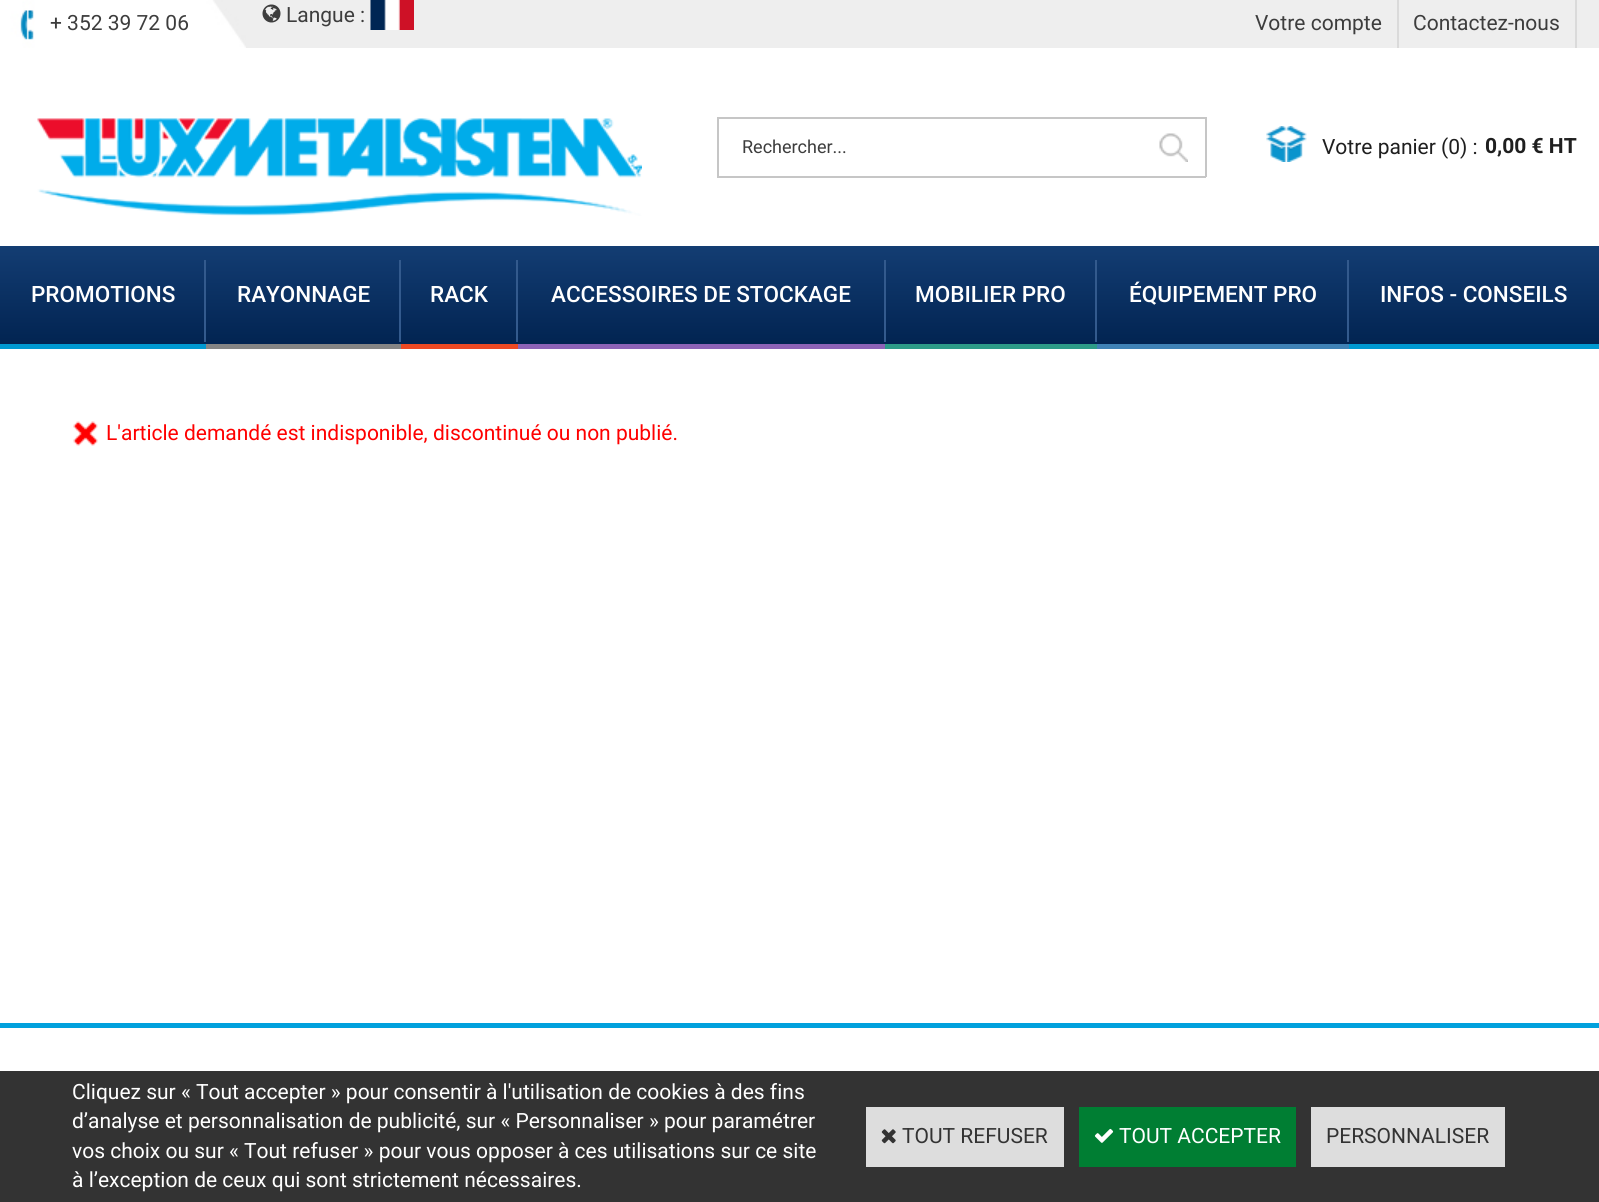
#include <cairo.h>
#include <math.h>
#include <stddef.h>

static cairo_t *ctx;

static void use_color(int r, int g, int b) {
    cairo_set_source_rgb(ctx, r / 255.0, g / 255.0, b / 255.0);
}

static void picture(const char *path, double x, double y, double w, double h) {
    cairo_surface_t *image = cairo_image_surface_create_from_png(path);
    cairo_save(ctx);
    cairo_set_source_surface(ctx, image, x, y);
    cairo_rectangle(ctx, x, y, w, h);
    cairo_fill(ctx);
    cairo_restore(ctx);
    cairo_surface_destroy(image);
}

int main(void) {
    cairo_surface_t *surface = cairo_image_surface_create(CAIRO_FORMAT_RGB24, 1599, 1202);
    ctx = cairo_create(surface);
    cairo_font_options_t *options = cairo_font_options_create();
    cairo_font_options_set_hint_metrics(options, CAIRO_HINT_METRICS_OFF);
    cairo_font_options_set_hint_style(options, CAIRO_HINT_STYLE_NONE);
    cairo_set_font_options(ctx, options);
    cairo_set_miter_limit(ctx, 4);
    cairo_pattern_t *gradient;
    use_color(255, 255, 255);
    cairo_paint(ctx);
    use_color(238, 238, 238);
    cairo_rectangle(ctx, 246, 0, 1353, 48);
    cairo_fill(ctx);
    picture("img1.png", 0, 0, 246, 48);
    cairo_select_font_face(ctx, "Roboto", CAIRO_FONT_SLANT_NORMAL, CAIRO_FONT_WEIGHT_NORMAL);
    cairo_set_font_size(ctx, 21);
    use_color(61, 61, 61);
    cairo_move_to(ctx, 50, 30);
    cairo_show_text(ctx, "+ 352 39 72 06");
    picture("img2.png", 262, 4, 19, 19);
    cairo_move_to(ctx, 286, 22);
    cairo_show_text(ctx, "Langue :");
    picture("img3.png", 370, 0, 44, 30);
    use_color(218, 218, 218);
    cairo_rectangle(ctx, 1397, 0, 2, 48);
    cairo_fill(ctx);
    use_color(61, 61, 61);
    cairo_move_to(ctx, 1255, 30);
    cairo_show_text(ctx, "Votre compte");
    use_color(218, 218, 218);
    cairo_rectangle(ctx, 1575, 0, 2, 48);
    cairo_fill(ctx);
    use_color(61, 61, 61);
    cairo_move_to(ctx, 1413, 30);
    cairo_show_text(ctx, "Contactez-nous");
    picture("img4.png", 37, 118, 605, 98);
    use_color(198, 198, 198);
    cairo_rectangle(ctx, 717, 117, 489, 2);
    cairo_fill(ctx);
    cairo_rectangle(ctx, 717, 176, 428, 2);
    cairo_fill(ctx);
    cairo_rectangle(ctx, 717, 117, 2, 60);
    cairo_fill(ctx);
    cairo_set_font_size(ctx, 18);
    use_color(61, 61, 61);
    cairo_move_to(ctx, 742, 153);
    cairo_show_text(ctx, "Rechercher...");
    picture("img5.png", 1159, 133, 29, 29);
    use_color(198, 198, 198);
    cairo_rectangle(ctx, 1205, 117, 2, 60);
    cairo_fill(ctx);
    cairo_rectangle(ctx, 1145, 176, 61, 2);
    cairo_fill(ctx);
    picture("img6.png", 1266, 126, 41, 36);
    cairo_set_font_size(ctx, 21);
    use_color(31, 31, 31);
    cairo_move_to(ctx, 1322, 154);
    cairo_show_text(ctx, "Votre panier (0) :");
    cairo_select_font_face(ctx, "Roboto", CAIRO_FONT_SLANT_NORMAL, CAIRO_FONT_WEIGHT_BOLD);
    cairo_move_to(ctx, 1485, 153);
    cairo_show_text(ctx, "0,00 € HT");
    gradient = cairo_pattern_create_linear(800, 246, 800, 348);
    cairo_pattern_add_color_stop_rgba(gradient, 0, 0.075, 0.239, 0.451, 1);
    cairo_pattern_add_color_stop_rgba(gradient, 1, 0.004, 0.137, 0.314, 1);
    cairo_set_source(ctx, gradient);
    cairo_pattern_destroy(gradient);
    cairo_rectangle(ctx, 0, 246, 1599, 98);
    cairo_fill(ctx);
    use_color(0, 153, 209);
    cairo_rectangle(ctx, 0, 344, 206, 5);
    cairo_fill(ctx);
    cairo_select_font_face(ctx, "Roboto Medium", CAIRO_FONT_SLANT_NORMAL, CAIRO_FONT_WEIGHT_NORMAL);
    cairo_set_font_size(ctx, 22.5);
    use_color(255, 255, 255);
    cairo_move_to(ctx, 31, 302);
    cairo_show_text(ctx, "PROMOTIONS");
    use_color(51, 90, 141);
    cairo_rectangle(ctx, 204, 260, 2, 82);
    cairo_fill(ctx);
    use_color(133, 133, 133);
    cairo_rectangle(ctx, 206, 344, 195, 5);
    cairo_fill(ctx);
    use_color(255, 255, 255);
    cairo_move_to(ctx, 237, 302);
    cairo_show_text(ctx, "RAYONNAGE");
    use_color(51, 90, 141);
    cairo_rectangle(ctx, 399, 260, 2, 82);
    cairo_fill(ctx);
    use_color(237, 73, 35);
    cairo_rectangle(ctx, 401, 344, 117, 5);
    cairo_fill(ctx);
    use_color(255, 255, 255);
    cairo_move_to(ctx, 430, 302);
    cairo_show_text(ctx, "RACK");
    use_color(51, 90, 141);
    cairo_rectangle(ctx, 516, 260, 2, 82);
    cairo_fill(ctx);
    use_color(141, 99, 183);
    cairo_rectangle(ctx, 518, 344, 367, 5);
    cairo_fill(ctx);
    use_color(255, 255, 255);
    cairo_move_to(ctx, 551, 302);
    cairo_show_text(ctx, "ACCESSOIRES DE STOCKAGE");
    use_color(51, 90, 141);
    cairo_rectangle(ctx, 884, 260, 2, 82);
    cairo_fill(ctx);
    use_color(45, 156, 136);
    cairo_rectangle(ctx, 885, 344, 212, 5);
    cairo_fill(ctx);
    use_color(255, 255, 255);
    cairo_move_to(ctx, 915, 302);
    cairo_show_text(ctx, "MOBILIER PRO");
    use_color(51, 90, 141);
    cairo_rectangle(ctx, 1095, 260, 2, 82);
    cairo_fill(ctx);
    use_color(63, 130, 182);
    cairo_rectangle(ctx, 1097, 344, 252, 5);
    cairo_fill(ctx);
    use_color(255, 255, 255);
    cairo_move_to(ctx, 1129, 302);
    cairo_show_text(ctx, "ÉQUIPEMENT PRO");
    use_color(51, 90, 141);
    cairo_rectangle(ctx, 1347, 260, 2, 82);
    cairo_fill(ctx);
    use_color(0, 153, 209);
    cairo_rectangle(ctx, 1349, 344, 250, 5);
    cairo_fill(ctx);
    use_color(255, 255, 255);
    cairo_move_to(ctx, 1380, 302);
    cairo_show_text(ctx, "INFOS - CONSEILS");
    picture("img7.png", 73, 421, 25, 25);
    cairo_select_font_face(ctx, "Roboto", CAIRO_FONT_SLANT_NORMAL, CAIRO_FONT_WEIGHT_NORMAL);
    cairo_set_font_size(ctx, 21);
    use_color(255, 0, 0);
    cairo_move_to(ctx, 106, 440);
    cairo_show_text(ctx, "L'article demandé est indisponible, discontinué ou non publié.");
    use_color(1, 161, 221);
    cairo_rectangle(ctx, 0, 1023, 1599, 5);
    cairo_fill(ctx);
    use_color(51, 51, 51);
    cairo_rectangle(ctx, 0, 1071, 1599, 131);
    cairo_fill(ctx);
    use_color(255, 255, 255);
    cairo_move_to(ctx, 72, 1099);
    cairo_show_text(ctx, "Cliquez sur « Tout accepter » pour consentir à l'utilisation de cookies à des fins");
    cairo_move_to(ctx, 72, 1128);
    cairo_show_text(ctx, "d’analyse et personnalisation de publicité, sur « Personnaliser » pour paramétrer");
    cairo_move_to(ctx, 72, 1158);
    cairo_show_text(ctx, "vos choix ou sur « Tout refuser » pour vous opposer à ces utilisations sur ce site");
    cairo_move_to(ctx, 72, 1187);
    cairo_show_text(ctx, "à l’exception de ceux qui sont strictement nécessaires.");
    use_color(221, 221, 221);
    cairo_rectangle(ctx, 866, 1107, 198, 60);
    cairo_fill(ctx);
    picture("img8.png", 881, 1129, 15, 15);
    use_color(51, 51, 51);
    cairo_move_to(ctx, 902, 1143);
    cairo_show_text(ctx, "TOUT REFUSER");
    use_color(0, 126, 51);
    cairo_rectangle(ctx, 1079, 1107, 217, 60);
    cairo_fill(ctx);
    picture("img9.png", 1094, 1128, 20, 15);
    use_color(255, 255, 255);
    cairo_move_to(ctx, 1119, 1143);
    cairo_show_text(ctx, "TOUT ACCEPTER");
    use_color(221, 221, 221);
    cairo_rectangle(ctx, 1311, 1107, 194, 60);
    cairo_fill(ctx);
    use_color(51, 51, 51);
    cairo_move_to(ctx, 1326, 1143);
    cairo_show_text(ctx, "PERSONNALISER");
    cairo_surface_write_to_png(surface, "result.png");
    cairo_font_options_destroy(options);
    cairo_destroy(ctx);
    cairo_surface_destroy(surface);
    return 0;
}
